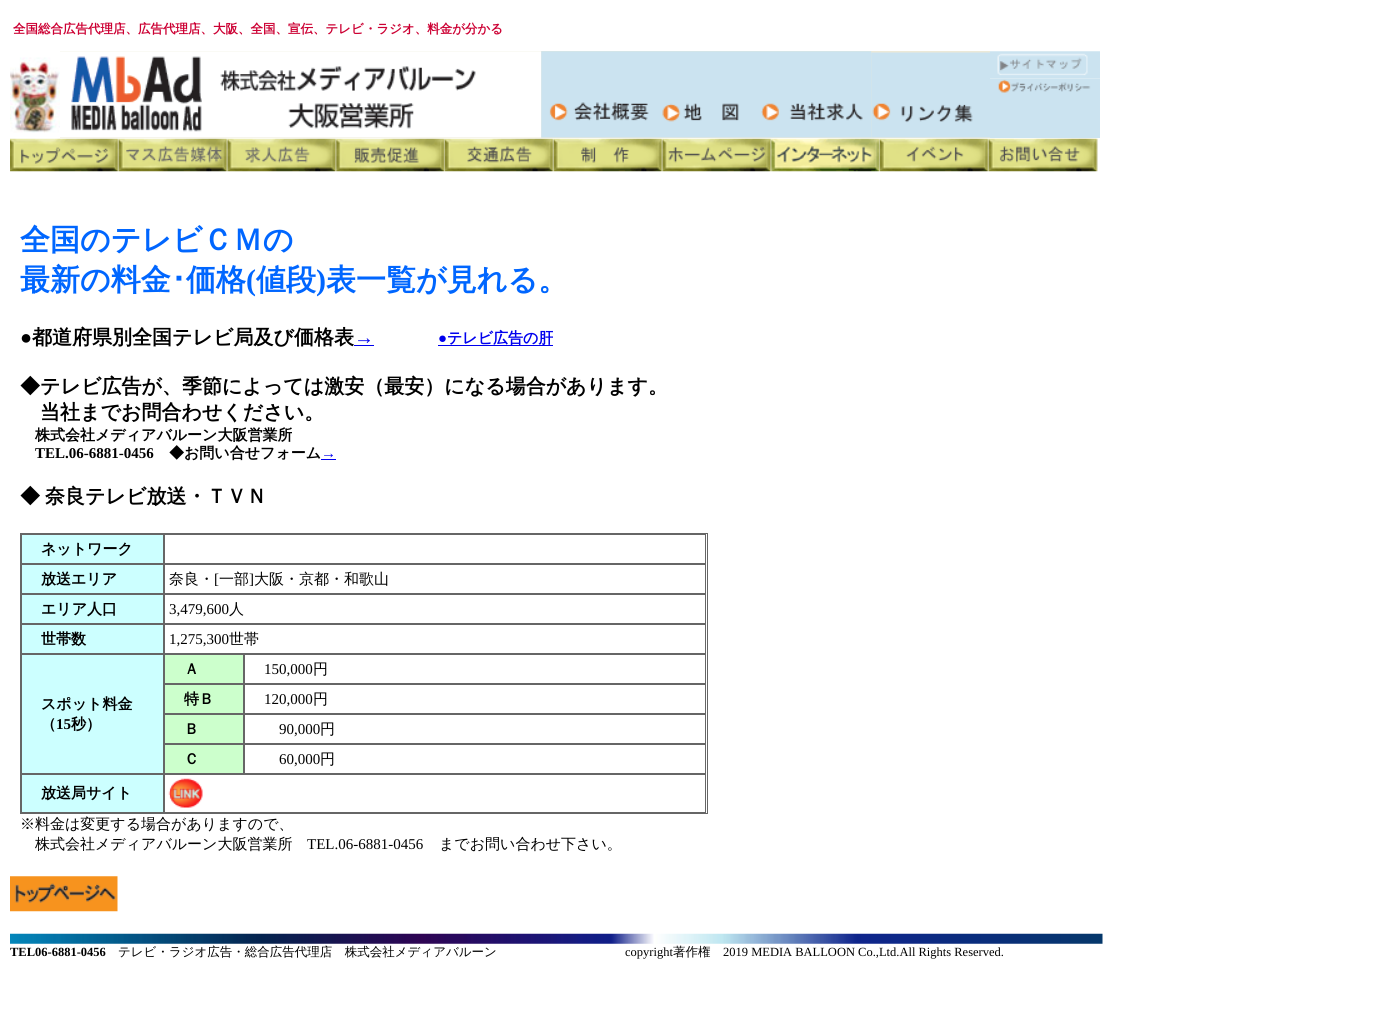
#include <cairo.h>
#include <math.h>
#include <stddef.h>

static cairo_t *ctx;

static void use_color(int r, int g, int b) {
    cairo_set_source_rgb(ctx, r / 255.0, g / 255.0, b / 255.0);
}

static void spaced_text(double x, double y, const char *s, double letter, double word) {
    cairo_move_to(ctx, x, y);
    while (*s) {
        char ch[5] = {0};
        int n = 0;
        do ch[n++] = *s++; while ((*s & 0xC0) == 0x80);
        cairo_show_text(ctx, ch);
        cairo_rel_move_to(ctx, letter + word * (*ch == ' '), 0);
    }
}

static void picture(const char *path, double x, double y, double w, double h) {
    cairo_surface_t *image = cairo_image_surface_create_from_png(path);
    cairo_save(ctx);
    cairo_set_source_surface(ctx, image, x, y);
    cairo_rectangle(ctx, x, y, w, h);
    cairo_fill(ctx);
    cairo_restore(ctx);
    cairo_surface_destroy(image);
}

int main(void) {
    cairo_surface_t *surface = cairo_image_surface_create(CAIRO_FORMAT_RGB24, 1394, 1030);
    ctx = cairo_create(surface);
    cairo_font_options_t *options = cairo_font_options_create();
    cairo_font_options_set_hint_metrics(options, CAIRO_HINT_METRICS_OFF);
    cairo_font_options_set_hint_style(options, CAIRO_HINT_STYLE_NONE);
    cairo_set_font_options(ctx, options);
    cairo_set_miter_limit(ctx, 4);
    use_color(255, 255, 255);
    cairo_paint(ctx);
    cairo_select_font_face(ctx, "WenQuanYi Zen Hei", CAIRO_FONT_SLANT_NORMAL, CAIRO_FONT_WEIGHT_BOLD);
    cairo_set_font_size(ctx, 12.5);
    use_color(204, 0, 51);
    cairo_move_to(ctx, 13, 33);
    cairo_show_text(ctx, "全国総合広告代理店、広告代理店、大阪、全国、宣伝、テレビ・ラジオ、料金が分かる");
    use_color(236, 233, 216);
    cairo_rectangle(ctx, 60, 51, 930, 87);
    cairo_fill(ctx);
    picture("img1.png", 60, 51, 482, 87);
    picture("img2.png", 10, 57, 50, 76);
    picture("img3.png", 541, 51, 119, 87);
    picture("img4.png", 660, 51, 100, 87);
    picture("img5.png", 760, 51, 112, 87);
    picture("img6.png", 871, 52, 119, 86);
    picture("img7.png", 990, 51, 110, 28);
    picture("img8.png", 990, 79, 110, 22);
    use_color(203, 227, 240);
    cairo_rectangle(ctx, 990, 101, 110, 37);
    cairo_fill(ctx);
    picture("img9.png", 10, 138, 109, 34);
    picture("img10.png", 118, 138, 110, 34);
    picture("img11.png", 227, 138, 110, 34);
    picture("img12.png", 336, 138, 109, 34);
    picture("img13.png", 445, 138, 109, 34);
    picture("img14.png", 553, 138, 110, 34);
    picture("img15.png", 662, 138, 110, 34);
    picture("img16.png", 771, 138, 109, 34);
    picture("img17.png", 880, 138, 109, 34);
    picture("img18.png", 988, 138, 110, 34);
    cairo_set_font_size(ctx, 30);
    use_color(0, 102, 255);
    cairo_move_to(ctx, 20, 250);
    cairo_show_text(ctx, "全国のテレビＣＭの");
    cairo_move_to(ctx, 20, 290);
    cairo_show_text(ctx, "最新の料金");
    cairo_select_font_face(ctx, "IPAGothic", CAIRO_FONT_SLANT_NORMAL, CAIRO_FONT_WEIGHT_BOLD);
    cairo_move_to(ctx, 171, 290);
    cairo_show_text(ctx, "･");
    cairo_select_font_face(ctx, "WenQuanYi Zen Hei", CAIRO_FONT_SLANT_NORMAL, CAIRO_FONT_WEIGHT_BOLD);
    cairo_move_to(ctx, 186, 290);
    cairo_show_text(ctx, "価格");
    cairo_select_font_face(ctx, "Liberation Serif", CAIRO_FONT_SLANT_NORMAL, CAIRO_FONT_WEIGHT_BOLD);
    cairo_move_to(ctx, 246, 290);
    cairo_show_text(ctx, "(");
    cairo_select_font_face(ctx, "WenQuanYi Zen Hei", CAIRO_FONT_SLANT_NORMAL, CAIRO_FONT_WEIGHT_BOLD);
    cairo_move_to(ctx, 256, 290);
    cairo_show_text(ctx, "値段");
    cairo_select_font_face(ctx, "Liberation Serif", CAIRO_FONT_SLANT_NORMAL, CAIRO_FONT_WEIGHT_BOLD);
    cairo_move_to(ctx, 316, 290);
    cairo_show_text(ctx, ")");
    cairo_select_font_face(ctx, "WenQuanYi Zen Hei", CAIRO_FONT_SLANT_NORMAL, CAIRO_FONT_WEIGHT_BOLD);
    cairo_move_to(ctx, 326, 290);
    cairo_show_text(ctx, "表一覧が見れる。");
    cairo_select_font_face(ctx, "Liberation Serif", CAIRO_FONT_SLANT_NORMAL, CAIRO_FONT_WEIGHT_BOLD);
    cairo_set_font_size(ctx, 20);
    use_color(0, 0, 0);
    cairo_move_to(ctx, 20, 344);
    cairo_show_text(ctx, "●");
    cairo_select_font_face(ctx, "WenQuanYi Zen Hei", CAIRO_FONT_SLANT_NORMAL, CAIRO_FONT_WEIGHT_BOLD);
    cairo_move_to(ctx, 32, 344);
    cairo_show_text(ctx, "都道府県別全国テレビ局及び価格表");
    cairo_select_font_face(ctx, "Liberation Serif", CAIRO_FONT_SLANT_NORMAL, CAIRO_FONT_WEIGHT_BOLD);
    use_color(0, 0, 238);
    cairo_move_to(ctx, 354, 344);
    cairo_show_text(ctx, "→");
    cairo_rectangle(ctx, 354, 345, 20, 1);
    cairo_fill(ctx);
    cairo_set_font_size(ctx, 15);
    cairo_move_to(ctx, 438, 343);
    cairo_show_text(ctx, "●");
    cairo_rectangle(ctx, 438, 345, 115, 1);
    cairo_fill(ctx);
    cairo_select_font_face(ctx, "WenQuanYi Zen Hei", CAIRO_FONT_SLANT_NORMAL, CAIRO_FONT_WEIGHT_BOLD);
    cairo_move_to(ctx, 447, 343);
    cairo_show_text(ctx, "テレビ広告の肝");
    cairo_set_font_size(ctx, 20);
    use_color(0, 0, 0);
    cairo_move_to(ctx, 20, 393);
    cairo_show_text(ctx, "◆テレビ広告が、季節によっては激安（最安）になる場合があります。");
    cairo_move_to(ctx, 40, 419);
    cairo_show_text(ctx, "当社までお問合わせください。");
    cairo_set_font_size(ctx, 15);
    cairo_move_to(ctx, 35, 440);
    cairo_show_text(ctx, "株式会社メディアバルーン大阪営業所");
    cairo_select_font_face(ctx, "Liberation Serif", CAIRO_FONT_SLANT_NORMAL, CAIRO_FONT_WEIGHT_BOLD);
    cairo_move_to(ctx, 35, 458);
    cairo_show_text(ctx, "TEL.06-6881-0456");
    cairo_select_font_face(ctx, "WenQuanYi Zen Hei", CAIRO_FONT_SLANT_NORMAL, CAIRO_FONT_WEIGHT_BOLD);
    cairo_move_to(ctx, 169, 458);
    cairo_show_text(ctx, "◆お問い合せフォーム");
    cairo_select_font_face(ctx, "Liberation Serif", CAIRO_FONT_SLANT_NORMAL, CAIRO_FONT_WEIGHT_BOLD);
    use_color(0, 0, 238);
    cairo_move_to(ctx, 321, 458);
    cairo_show_text(ctx, "→");
    cairo_rectangle(ctx, 321, 459, 15, 1);
    cairo_fill(ctx);
    cairo_select_font_face(ctx, "WenQuanYi Zen Hei", CAIRO_FONT_SLANT_NORMAL, CAIRO_FONT_WEIGHT_BOLD);
    cairo_set_font_size(ctx, 20);
    use_color(0, 0, 0);
    spaced_text(20, 503, "◆ 奈良テレビ放送・ＴＶＮ", 0, -1);
    cairo_rectangle(ctx, 20.5, 533.5, 687, 280);
    use_color(102, 102, 102);
    cairo_set_line_width(ctx, 1);
    cairo_stroke(ctx);
    use_color(204, 255, 255);
    cairo_rectangle(ctx, 21.5, 534.5, 142, 29);
    cairo_fill_preserve(ctx);
    use_color(102, 102, 102);
    cairo_stroke(ctx);
    cairo_set_font_size(ctx, 15);
    use_color(0, 0, 0);
    cairo_move_to(ctx, 41, 554);
    cairo_show_text(ctx, "ネットワーク");
    cairo_rectangle(ctx, 164.5, 534.5, 541, 29);
    use_color(102, 102, 102);
    cairo_stroke(ctx);
    use_color(204, 255, 255);
    cairo_rectangle(ctx, 21.5, 564.5, 142, 29);
    cairo_fill_preserve(ctx);
    use_color(102, 102, 102);
    cairo_stroke(ctx);
    use_color(0, 0, 0);
    cairo_move_to(ctx, 41, 584);
    cairo_show_text(ctx, "放送エリア");
    cairo_rectangle(ctx, 164.5, 564.5, 541, 29);
    use_color(102, 102, 102);
    cairo_stroke(ctx);
    cairo_select_font_face(ctx, "WenQuanYi Zen Hei Medium", CAIRO_FONT_SLANT_NORMAL, CAIRO_FONT_WEIGHT_NORMAL);
    use_color(0, 0, 0);
    cairo_move_to(ctx, 169, 584);
    cairo_show_text(ctx, "奈良・");
    cairo_select_font_face(ctx, "Liberation Serif", CAIRO_FONT_SLANT_NORMAL, CAIRO_FONT_WEIGHT_NORMAL);
    cairo_move_to(ctx, 214, 584);
    cairo_show_text(ctx, "[");
    cairo_select_font_face(ctx, "WenQuanYi Zen Hei Medium", CAIRO_FONT_SLANT_NORMAL, CAIRO_FONT_WEIGHT_NORMAL);
    cairo_move_to(ctx, 219, 584);
    cairo_show_text(ctx, "一部");
    cairo_select_font_face(ctx, "Liberation Serif", CAIRO_FONT_SLANT_NORMAL, CAIRO_FONT_WEIGHT_NORMAL);
    cairo_move_to(ctx, 249, 584);
    cairo_show_text(ctx, "]");
    cairo_select_font_face(ctx, "WenQuanYi Zen Hei Medium", CAIRO_FONT_SLANT_NORMAL, CAIRO_FONT_WEIGHT_NORMAL);
    cairo_move_to(ctx, 254, 584);
    cairo_show_text(ctx, "大阪・京都・和歌山");
    use_color(204, 255, 255);
    cairo_rectangle(ctx, 21.5, 594.5, 142, 29);
    cairo_fill_preserve(ctx);
    use_color(102, 102, 102);
    cairo_stroke(ctx);
    cairo_select_font_face(ctx, "WenQuanYi Zen Hei", CAIRO_FONT_SLANT_NORMAL, CAIRO_FONT_WEIGHT_BOLD);
    use_color(0, 0, 0);
    cairo_move_to(ctx, 41, 614);
    cairo_show_text(ctx, "エリア人口");
    cairo_rectangle(ctx, 164.5, 594.5, 541, 29);
    use_color(102, 102, 102);
    cairo_stroke(ctx);
    cairo_select_font_face(ctx, "Liberation Serif", CAIRO_FONT_SLANT_NORMAL, CAIRO_FONT_WEIGHT_NORMAL);
    use_color(0, 0, 0);
    cairo_move_to(ctx, 169, 614);
    cairo_show_text(ctx, "3,479,600");
    cairo_select_font_face(ctx, "WenQuanYi Zen Hei Medium", CAIRO_FONT_SLANT_NORMAL, CAIRO_FONT_WEIGHT_NORMAL);
    cairo_move_to(ctx, 229, 614);
    cairo_show_text(ctx, "人");
    use_color(204, 255, 255);
    cairo_rectangle(ctx, 21.5, 624.5, 142, 29);
    cairo_fill_preserve(ctx);
    use_color(102, 102, 102);
    cairo_stroke(ctx);
    cairo_select_font_face(ctx, "WenQuanYi Zen Hei", CAIRO_FONT_SLANT_NORMAL, CAIRO_FONT_WEIGHT_BOLD);
    use_color(0, 0, 0);
    cairo_move_to(ctx, 41, 644);
    cairo_show_text(ctx, "世帯数");
    cairo_rectangle(ctx, 164.5, 624.5, 541, 29);
    use_color(102, 102, 102);
    cairo_stroke(ctx);
    cairo_select_font_face(ctx, "Liberation Serif", CAIRO_FONT_SLANT_NORMAL, CAIRO_FONT_WEIGHT_NORMAL);
    use_color(0, 0, 0);
    cairo_move_to(ctx, 169, 644);
    cairo_show_text(ctx, "1,275,300");
    cairo_select_font_face(ctx, "WenQuanYi Zen Hei Medium", CAIRO_FONT_SLANT_NORMAL, CAIRO_FONT_WEIGHT_NORMAL);
    cairo_move_to(ctx, 229, 644);
    cairo_show_text(ctx, "世帯");
    use_color(204, 255, 204);
    cairo_rectangle(ctx, 164.5, 654.5, 79, 29);
    cairo_fill_preserve(ctx);
    use_color(102, 102, 102);
    cairo_stroke(ctx);
    cairo_select_font_face(ctx, "WenQuanYi Zen Hei", CAIRO_FONT_SLANT_NORMAL, CAIRO_FONT_WEIGHT_BOLD);
    use_color(0, 0, 0);
    cairo_move_to(ctx, 184, 674);
    cairo_show_text(ctx, "Ａ");
    cairo_rectangle(ctx, 244.5, 654.5, 461, 29);
    use_color(102, 102, 102);
    cairo_stroke(ctx);
    cairo_select_font_face(ctx, "Liberation Serif", CAIRO_FONT_SLANT_NORMAL, CAIRO_FONT_WEIGHT_NORMAL);
    use_color(0, 0, 0);
    cairo_move_to(ctx, 264, 674);
    cairo_show_text(ctx, "150,000");
    cairo_select_font_face(ctx, "WenQuanYi Zen Hei Medium", CAIRO_FONT_SLANT_NORMAL, CAIRO_FONT_WEIGHT_NORMAL);
    cairo_move_to(ctx, 313, 674);
    cairo_show_text(ctx, "円");
    use_color(204, 255, 255);
    cairo_rectangle(ctx, 21.5, 654.5, 142, 119);
    cairo_fill_preserve(ctx);
    use_color(102, 102, 102);
    cairo_stroke(ctx);
    cairo_select_font_face(ctx, "WenQuanYi Zen Hei", CAIRO_FONT_SLANT_NORMAL, CAIRO_FONT_WEIGHT_BOLD);
    use_color(0, 0, 0);
    cairo_move_to(ctx, 41, 709);
    cairo_show_text(ctx, "スポット料金");
    cairo_move_to(ctx, 41, 729);
    cairo_show_text(ctx, "（");
    cairo_select_font_face(ctx, "Liberation Serif", CAIRO_FONT_SLANT_NORMAL, CAIRO_FONT_WEIGHT_BOLD);
    cairo_move_to(ctx, 56, 729);
    cairo_show_text(ctx, "15");
    cairo_select_font_face(ctx, "WenQuanYi Zen Hei", CAIRO_FONT_SLANT_NORMAL, CAIRO_FONT_WEIGHT_BOLD);
    cairo_move_to(ctx, 71, 729);
    cairo_show_text(ctx, "秒）");
    use_color(204, 255, 204);
    cairo_rectangle(ctx, 164.5, 684.5, 79, 29);
    cairo_fill_preserve(ctx);
    use_color(102, 102, 102);
    cairo_stroke(ctx);
    use_color(0, 0, 0);
    cairo_move_to(ctx, 184, 704);
    cairo_show_text(ctx, "特Ｂ");
    cairo_rectangle(ctx, 244.5, 684.5, 461, 29);
    use_color(102, 102, 102);
    cairo_stroke(ctx);
    cairo_select_font_face(ctx, "Liberation Serif", CAIRO_FONT_SLANT_NORMAL, CAIRO_FONT_WEIGHT_NORMAL);
    use_color(0, 0, 0);
    cairo_move_to(ctx, 264, 704);
    cairo_show_text(ctx, "120,000");
    cairo_select_font_face(ctx, "WenQuanYi Zen Hei Medium", CAIRO_FONT_SLANT_NORMAL, CAIRO_FONT_WEIGHT_NORMAL);
    cairo_move_to(ctx, 313, 704);
    cairo_show_text(ctx, "円");
    use_color(204, 255, 204);
    cairo_rectangle(ctx, 164.5, 714.5, 79, 29);
    cairo_fill_preserve(ctx);
    use_color(102, 102, 102);
    cairo_stroke(ctx);
    cairo_select_font_face(ctx, "WenQuanYi Zen Hei", CAIRO_FONT_SLANT_NORMAL, CAIRO_FONT_WEIGHT_BOLD);
    use_color(0, 0, 0);
    cairo_move_to(ctx, 184, 734);
    cairo_show_text(ctx, "Ｂ");
    cairo_rectangle(ctx, 244.5, 714.5, 461, 29);
    use_color(102, 102, 102);
    cairo_stroke(ctx);
    cairo_select_font_face(ctx, "Liberation Serif", CAIRO_FONT_SLANT_NORMAL, CAIRO_FONT_WEIGHT_NORMAL);
    use_color(0, 0, 0);
    cairo_move_to(ctx, 279, 734);
    cairo_show_text(ctx, "90,000");
    cairo_select_font_face(ctx, "WenQuanYi Zen Hei Medium", CAIRO_FONT_SLANT_NORMAL, CAIRO_FONT_WEIGHT_NORMAL);
    cairo_move_to(ctx, 320, 734);
    cairo_show_text(ctx, "円");
    use_color(204, 255, 204);
    cairo_rectangle(ctx, 164.5, 744.5, 79, 29);
    cairo_fill_preserve(ctx);
    use_color(102, 102, 102);
    cairo_stroke(ctx);
    cairo_select_font_face(ctx, "WenQuanYi Zen Hei", CAIRO_FONT_SLANT_NORMAL, CAIRO_FONT_WEIGHT_BOLD);
    use_color(0, 0, 0);
    cairo_move_to(ctx, 184, 764);
    cairo_show_text(ctx, "Ｃ");
    cairo_rectangle(ctx, 244.5, 744.5, 461, 29);
    use_color(102, 102, 102);
    cairo_stroke(ctx);
    cairo_select_font_face(ctx, "Liberation Serif", CAIRO_FONT_SLANT_NORMAL, CAIRO_FONT_WEIGHT_NORMAL);
    use_color(0, 0, 0);
    cairo_move_to(ctx, 279, 764);
    cairo_show_text(ctx, "60,000");
    cairo_select_font_face(ctx, "WenQuanYi Zen Hei Medium", CAIRO_FONT_SLANT_NORMAL, CAIRO_FONT_WEIGHT_NORMAL);
    cairo_move_to(ctx, 320, 764);
    cairo_show_text(ctx, "円");
    use_color(204, 255, 255);
    cairo_rectangle(ctx, 21.5, 774.5, 142, 38);
    cairo_fill_preserve(ctx);
    use_color(102, 102, 102);
    cairo_stroke(ctx);
    cairo_select_font_face(ctx, "WenQuanYi Zen Hei", CAIRO_FONT_SLANT_NORMAL, CAIRO_FONT_WEIGHT_BOLD);
    use_color(0, 0, 0);
    cairo_move_to(ctx, 41, 798);
    cairo_show_text(ctx, "放送局サイト");
    cairo_rectangle(ctx, 164.5, 774.5, 541, 38);
    use_color(102, 102, 102);
    cairo_stroke(ctx);
    picture("img19.png", 168, 778, 35, 30);
    cairo_select_font_face(ctx, "WenQuanYi Zen Hei Medium", CAIRO_FONT_SLANT_NORMAL, CAIRO_FONT_WEIGHT_NORMAL);
    use_color(0, 0, 0);
    cairo_move_to(ctx, 20, 829);
    cairo_show_text(ctx, "※料金は変更する場合がありますので、");
    cairo_move_to(ctx, 35, 849);
    cairo_show_text(ctx, "株式会社メディアバルーン大阪営業所");
    cairo_select_font_face(ctx, "Liberation Serif", CAIRO_FONT_SLANT_NORMAL, CAIRO_FONT_WEIGHT_NORMAL);
    cairo_move_to(ctx, 307, 849);
    cairo_show_text(ctx, "TEL.06-6881-0456");
    cairo_select_font_face(ctx, "WenQuanYi Zen Hei Medium", CAIRO_FONT_SLANT_NORMAL, CAIRO_FONT_WEIGHT_NORMAL);
    cairo_move_to(ctx, 439, 849);
    cairo_show_text(ctx, "までお問い合わせ下さい。");
    picture("img20.png", 10, 876, 108, 36);
    picture("img21.png", 10, 933, 1093, 11);
    cairo_select_font_face(ctx, "Liberation Serif", CAIRO_FONT_SLANT_NORMAL, CAIRO_FONT_WEIGHT_BOLD);
    cairo_set_font_size(ctx, 12.5);
    cairo_move_to(ctx, 10, 956);
    cairo_show_text(ctx, "TEL06-6881-0456");
    cairo_select_font_face(ctx, "WenQuanYi Zen Hei Medium", CAIRO_FONT_SLANT_NORMAL, CAIRO_FONT_WEIGHT_NORMAL);
    cairo_move_to(ctx, 118, 956);
    cairo_show_text(ctx, "テレビ・ラジオ広告・総合広告代理店　株式会社メディアバルーン");
    cairo_select_font_face(ctx, "Liberation Serif", CAIRO_FONT_SLANT_NORMAL, CAIRO_FONT_WEIGHT_NORMAL);
    cairo_move_to(ctx, 625, 956);
    cairo_show_text(ctx, "copyright");
    cairo_select_font_face(ctx, "WenQuanYi Zen Hei Medium", CAIRO_FONT_SLANT_NORMAL, CAIRO_FONT_WEIGHT_NORMAL);
    cairo_move_to(ctx, 673, 956);
    cairo_show_text(ctx, "著作権");
    cairo_select_font_face(ctx, "Liberation Serif", CAIRO_FONT_SLANT_NORMAL, CAIRO_FONT_WEIGHT_NORMAL);
    cairo_move_to(ctx, 723, 956);
    cairo_show_text(ctx, "2019 MEDIA BALLOON Co.,Ltd.All Rights Reserved.");
    cairo_surface_write_to_png(surface, "result.png");
    cairo_font_options_destroy(options);
    cairo_destroy(ctx);
    cairo_surface_destroy(surface);
    return 0;
}
